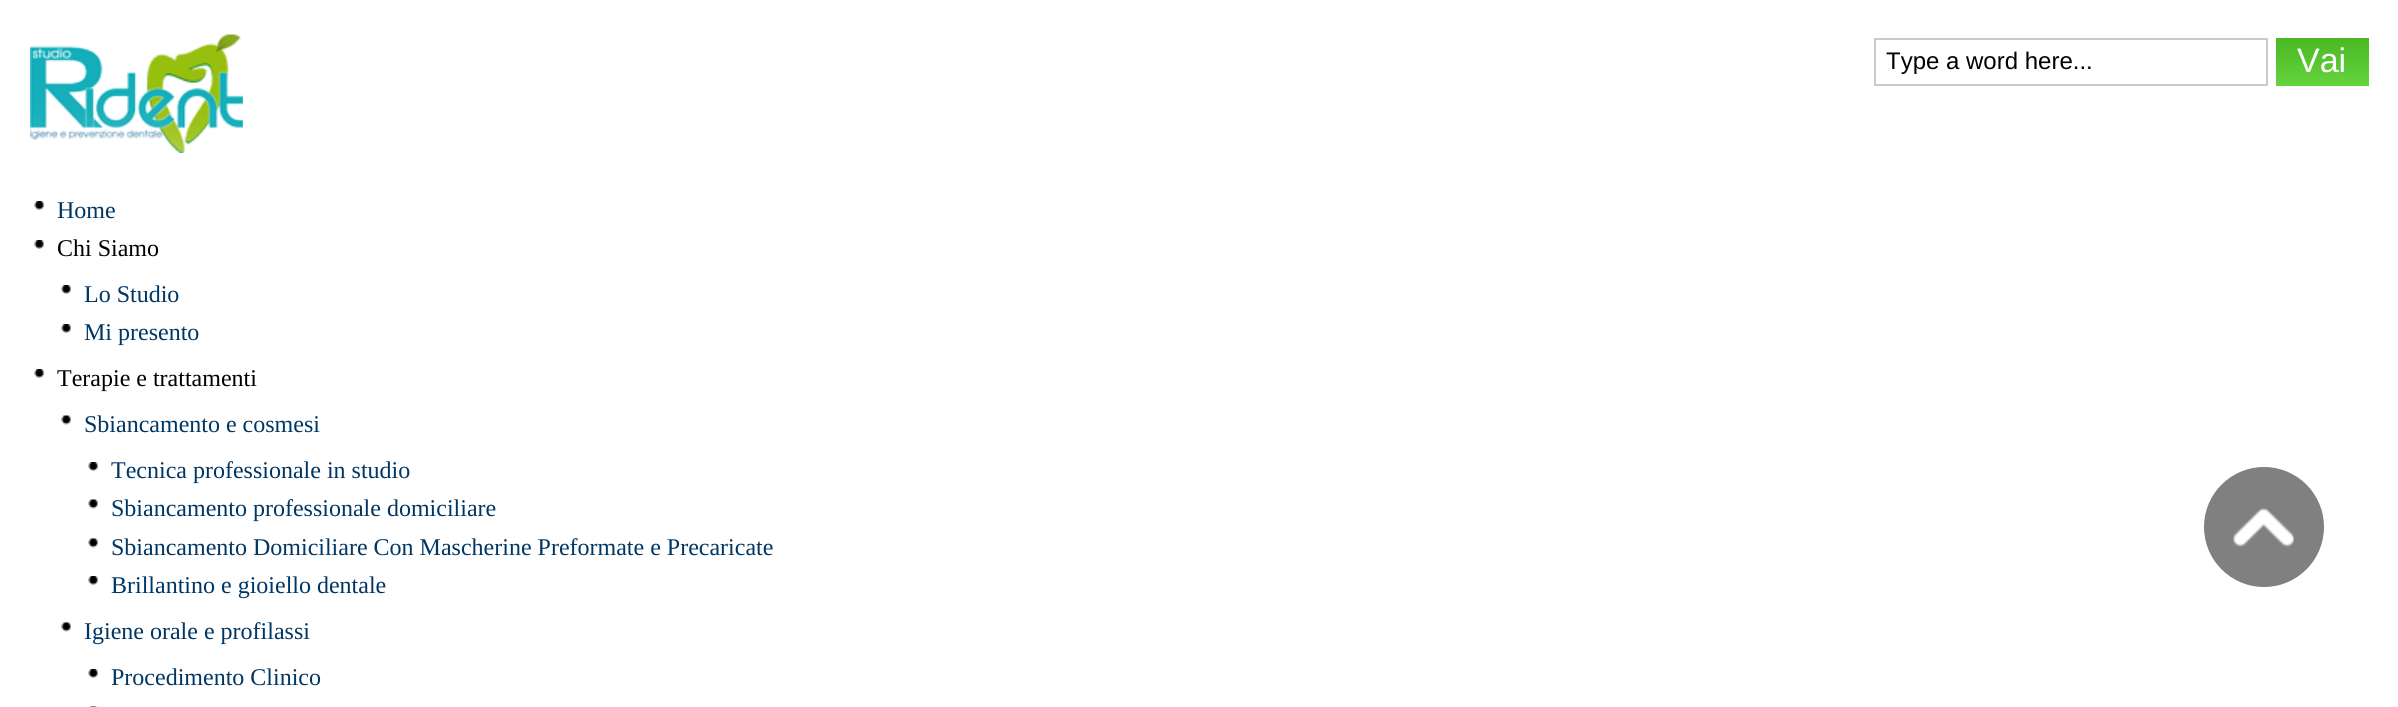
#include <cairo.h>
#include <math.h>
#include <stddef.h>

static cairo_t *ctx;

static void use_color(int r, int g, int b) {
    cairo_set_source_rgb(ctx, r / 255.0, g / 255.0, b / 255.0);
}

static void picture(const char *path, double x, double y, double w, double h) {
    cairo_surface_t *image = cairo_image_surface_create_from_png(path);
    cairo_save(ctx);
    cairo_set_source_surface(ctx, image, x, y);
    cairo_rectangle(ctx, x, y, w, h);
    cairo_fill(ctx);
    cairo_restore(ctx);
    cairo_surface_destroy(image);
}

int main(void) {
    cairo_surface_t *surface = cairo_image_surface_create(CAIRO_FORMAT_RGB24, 2398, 707);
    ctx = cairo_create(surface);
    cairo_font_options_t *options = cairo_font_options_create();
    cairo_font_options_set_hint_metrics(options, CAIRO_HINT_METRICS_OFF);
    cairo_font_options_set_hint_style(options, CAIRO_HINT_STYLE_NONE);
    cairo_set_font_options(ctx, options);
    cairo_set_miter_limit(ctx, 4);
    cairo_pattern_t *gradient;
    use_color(255, 255, 255);
    cairo_paint(ctx);
    picture("img1.png", 30, 34, 213, 119);
    cairo_rectangle(ctx, 1875, 39, 392, 46);
    use_color(202, 202, 202);
    cairo_stroke(ctx);
    cairo_select_font_face(ctx, "Liberation Sans", CAIRO_FONT_SLANT_NORMAL, CAIRO_FONT_WEIGHT_NORMAL);
    cairo_set_font_size(ctx, 24);
    use_color(0, 0, 0);
    cairo_move_to(ctx, 1886, 69);
    cairo_show_text(ctx, "Type a word here...");
    gradient = cairo_pattern_create_linear(2322, 37, 2322, 86);
    cairo_pattern_add_color_stop_rgba(gradient, 0, 0.286, 0.718, 0.133, 1);
    cairo_pattern_add_color_stop_rgba(gradient, 1, 0.4, 0.831, 0.247, 1);
    cairo_set_source(ctx, gradient);
    cairo_pattern_destroy(gradient);
    cairo_rectangle(ctx, 2276, 38, 93, 48);
    cairo_fill(ctx);
    cairo_set_font_size(ctx, 34);
    use_color(255, 255, 255);
    cairo_move_to(ctx, 2297, 72);
    cairo_show_text(ctx, "Vai");
    picture("img2.png", 34, 201, 10, 9);
    cairo_select_font_face(ctx, "Liberation Serif", CAIRO_FONT_SLANT_NORMAL, CAIRO_FONT_WEIGHT_NORMAL);
    cairo_set_font_size(ctx, 24);
    use_color(0, 54, 99);
    cairo_move_to(ctx, 57, 218);
    cairo_show_text(ctx, "Home");
    picture("img2.png", 34, 240, 10, 9);
    use_color(0, 0, 0);
    cairo_move_to(ctx, 57, 256);
    cairo_show_text(ctx, "Chi Siamo");
    picture("img2.png", 61, 285, 10, 9);
    use_color(0, 54, 99);
    cairo_move_to(ctx, 84, 302);
    cairo_show_text(ctx, "Lo Studio");
    picture("img2.png", 61, 324, 10, 9);
    cairo_move_to(ctx, 84, 340);
    cairo_show_text(ctx, "Mi presento");
    picture("img2.png", 34, 369, 10, 9);
    use_color(0, 0, 0);
    cairo_move_to(ctx, 57, 386);
    cairo_show_text(ctx, "Terapie e trattamenti");
    picture("img3.png", 61, 415, 10, 10);
    use_color(0, 54, 99);
    cairo_move_to(ctx, 84, 432);
    cairo_show_text(ctx, "Sbiancamento e cosmesi");
    picture("img2.png", 88, 462, 10, 9);
    cairo_move_to(ctx, 111, 478);
    cairo_show_text(ctx, "Tecnica professionale in studio");
    picture("img3.png", 88, 499, 10, 10);
    cairo_move_to(ctx, 111, 516);
    cairo_show_text(ctx, "Sbiancamento professionale domiciliare");
    picture("img3.png", 88, 538, 10, 10);
    cairo_move_to(ctx, 111, 555);
    cairo_show_text(ctx, "Sbiancamento Domiciliare Con Mascherine Preformate e Precaricate");
    picture("img2.png", 88, 576, 10, 9);
    cairo_move_to(ctx, 111, 593);
    cairo_show_text(ctx, "Brillantino e gioiello dentale");
    picture("img3.png", 61, 622, 10, 10);
    cairo_move_to(ctx, 84, 639);
    cairo_show_text(ctx, "Igiene orale e profilassi");
    picture("img2.png", 88, 669, 10, 9);
    cairo_move_to(ctx, 111, 685);
    cairo_show_text(ctx, "Procedimento Clinico");
    picture("img4.png", 89, 706, 9, 1);
    use_color(128, 128, 128);
    cairo_arc(ctx, 2264, 527, 60, 0, 2 * M_PI);
    cairo_fill(ctx);
    picture("img5.png", 2233, 508, 61, 39);
    cairo_surface_write_to_png(surface, "result.png");
    cairo_font_options_destroy(options);
    cairo_destroy(ctx);
    cairo_surface_destroy(surface);
    return 0;
}
